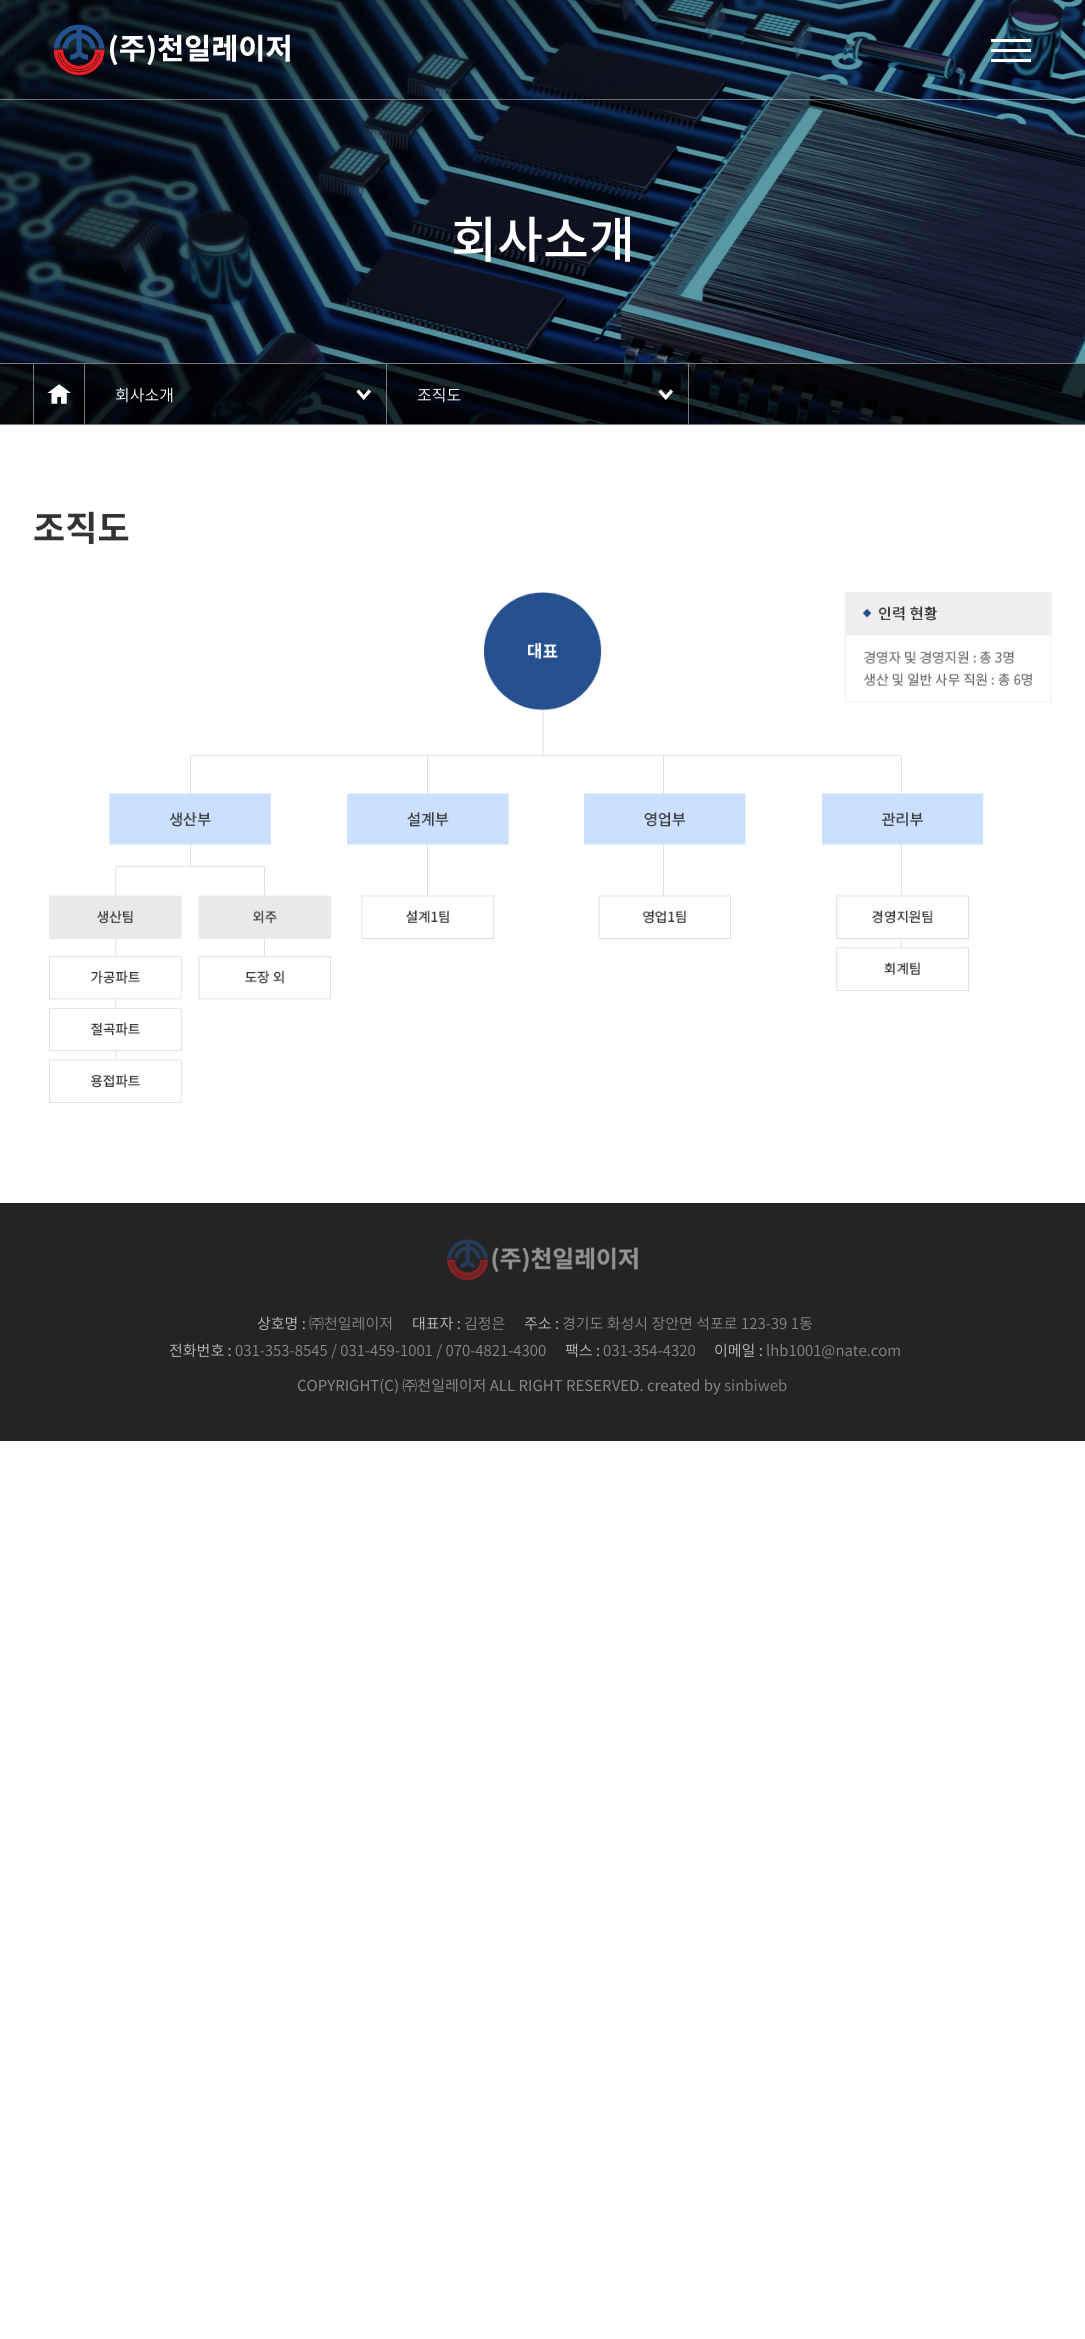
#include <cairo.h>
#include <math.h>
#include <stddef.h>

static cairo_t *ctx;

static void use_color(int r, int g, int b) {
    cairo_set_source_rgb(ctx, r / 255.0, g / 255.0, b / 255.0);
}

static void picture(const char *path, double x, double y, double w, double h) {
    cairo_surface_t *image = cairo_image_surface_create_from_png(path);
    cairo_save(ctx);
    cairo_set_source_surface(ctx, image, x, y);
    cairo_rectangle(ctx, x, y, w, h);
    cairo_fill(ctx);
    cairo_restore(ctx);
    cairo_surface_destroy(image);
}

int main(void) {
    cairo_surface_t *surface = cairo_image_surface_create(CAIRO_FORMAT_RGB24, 1085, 2339);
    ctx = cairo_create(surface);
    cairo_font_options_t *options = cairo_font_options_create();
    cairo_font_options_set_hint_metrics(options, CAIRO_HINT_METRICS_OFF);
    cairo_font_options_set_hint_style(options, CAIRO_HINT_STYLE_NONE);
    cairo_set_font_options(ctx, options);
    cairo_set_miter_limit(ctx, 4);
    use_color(255, 255, 255);
    cairo_paint(ctx);
    picture("img2.png", 0, 0, 1085, 424);
    cairo_set_source_rgba(ctx, 1, 1, 1, 0.4);
    cairo_rectangle(ctx, 0, 99, 1085, 1);
    cairo_fill(ctx);
    picture("img1.png", 54, 24, 236, 51);
    use_color(255, 255, 255);
    cairo_rectangle(ctx, 991, 49, 40, 3);
    cairo_fill(ctx);
    cairo_rectangle(ctx, 991, 39, 40, 3);
    cairo_fill(ctx);
    cairo_rectangle(ctx, 991, 59, 40, 3);
    cairo_fill(ctx);
    cairo_select_font_face(ctx, "Noto Sans KR Medium", CAIRO_FONT_SLANT_NORMAL, CAIRO_FONT_WEIGHT_NORMAL);
    cairo_set_font_size(ctx, 50);
    cairo_move_to(ctx, 451, 258);
    cairo_show_text(ctx, "회사소개");
    cairo_set_source_rgba(ctx, 0, 0, 0, 0.7);
    cairo_rectangle(ctx, 0, 364, 1085, 60);
    cairo_fill(ctx);
    use_color(122, 122, 122);
    cairo_rectangle(ctx, 0, 363, 1085, 1);
    cairo_fill(ctx);
    cairo_rectangle(ctx, 0, 424, 1085, 1);
    cairo_fill(ctx);
    cairo_rectangle(ctx, 84, 364, 1, 60);
    cairo_fill(ctx);
    cairo_rectangle(ctx, 33, 364, 1, 60);
    cairo_fill(ctx);
    picture("img3.png", 47, 384, 24, 20);
    cairo_rectangle(ctx, 386, 364, 1, 60);
    cairo_fill(ctx);
    picture("img4.png", 356, 389, 15, 11);
    cairo_select_font_face(ctx, "Noto Sans KR Light", CAIRO_FONT_SLANT_NORMAL, CAIRO_FONT_WEIGHT_NORMAL);
    cairo_set_font_size(ctx, 16);
    use_color(255, 255, 255);
    cairo_move_to(ctx, 115, 401);
    cairo_show_text(ctx, "회사소개");
    use_color(122, 122, 122);
    cairo_rectangle(ctx, 688, 364, 1, 60);
    cairo_fill(ctx);
    picture("img5.png", 658, 389, 15, 11);
    use_color(255, 255, 255);
    cairo_move_to(ctx, 417, 401);
    cairo_show_text(ctx, "조직도");
    cairo_select_font_face(ctx, "Noto Sans KR", CAIRO_FONT_SLANT_NORMAL, CAIRO_FONT_WEIGHT_BOLD);
    cairo_set_font_size(ctx, 35);
    use_color(51, 51, 51);
    cairo_move_to(ctx, 33, 541);
    cairo_show_text(ctx, "조직도");
    picture("img6.png", 49, 592, 1003, 511);
    use_color(36, 36, 36);
    cairo_rectangle(ctx, 0, 1203, 1085, 238);
    cairo_fill(ctx);
    picture("img7.png", 447, 1239, 191, 41);
    cairo_select_font_face(ctx, "Noto Sans KR Light", CAIRO_FONT_SLANT_NORMAL, CAIRO_FONT_WEIGHT_NORMAL);
    cairo_set_font_size(ctx, 15);
    use_color(190, 190, 190);
    cairo_move_to(ctx, 257, 1329);
    cairo_show_text(ctx, "상호명 :");
    use_color(136, 136, 136);
    cairo_move_to(ctx, 309, 1329);
    cairo_show_text(ctx, "㈜천일레이저");
    use_color(190, 190, 190);
    cairo_move_to(ctx, 412, 1329);
    cairo_show_text(ctx, "대표자 :");
    use_color(136, 136, 136);
    cairo_move_to(ctx, 464, 1329);
    cairo_show_text(ctx, "김정은");
    use_color(190, 190, 190);
    cairo_move_to(ctx, 524, 1329);
    cairo_show_text(ctx, "주소 :");
    use_color(136, 136, 136);
    cairo_move_to(ctx, 562, 1329);
    cairo_show_text(ctx, "경기도 화성시 장안면 석포로 123-39 1동");
    use_color(190, 190, 190);
    cairo_move_to(ctx, 169, 1356);
    cairo_show_text(ctx, "전화번호 :");
    use_color(136, 136, 136);
    cairo_move_to(ctx, 235, 1356);
    cairo_show_text(ctx, "031-353-8545 / 031-459-1001 / 070-4821-4300");
    use_color(190, 190, 190);
    cairo_move_to(ctx, 565, 1356);
    cairo_show_text(ctx, "팩스 :");
    use_color(136, 136, 136);
    cairo_move_to(ctx, 603, 1356);
    cairo_show_text(ctx, "031-354-4320");
    use_color(190, 190, 190);
    cairo_move_to(ctx, 714, 1356);
    cairo_show_text(ctx, "이메일 :");
    use_color(136, 136, 136);
    cairo_move_to(ctx, 766, 1356);
    cairo_show_text(ctx, "lhb1001@nate.com");
    cairo_select_font_face(ctx, "Noto Sans KR", CAIRO_FONT_SLANT_NORMAL, CAIRO_FONT_WEIGHT_NORMAL);
    cairo_move_to(ctx, 297, 1391);
    cairo_show_text(ctx, "COPYRIGHT(C) ㈜천일레이저 ALL RIGHT RESERVED. created by");
    use_color(121, 121, 121);
    cairo_move_to(ctx, 724, 1391);
    cairo_show_text(ctx, "sinbiweb");
    cairo_surface_write_to_png(surface, "result.png");
    cairo_font_options_destroy(options);
    cairo_destroy(ctx);
    cairo_surface_destroy(surface);
    return 0;
}
